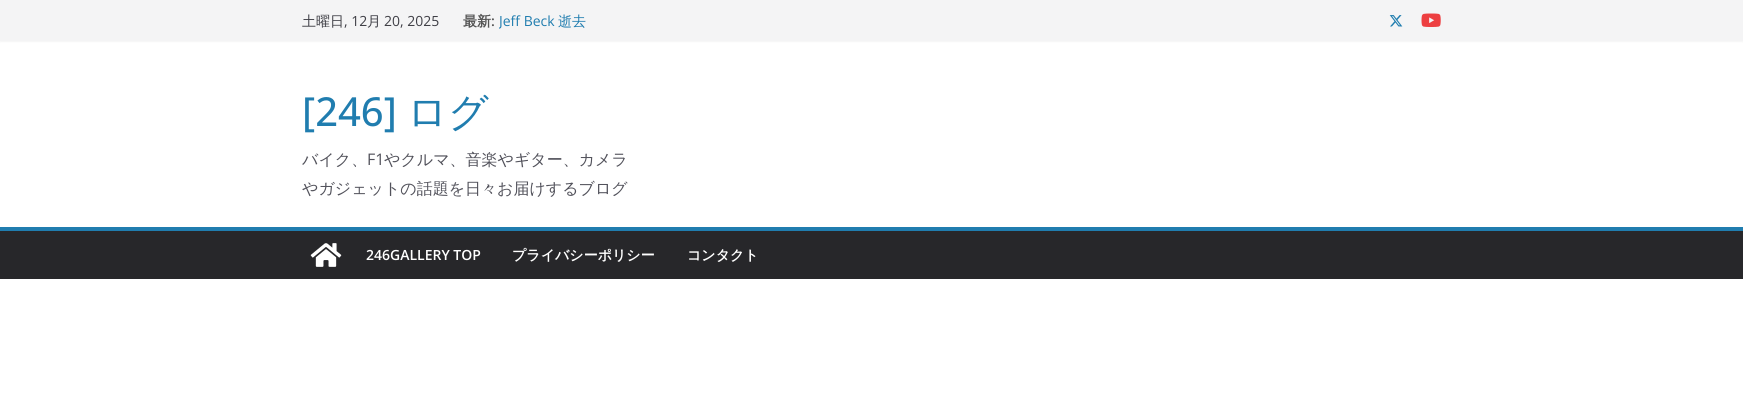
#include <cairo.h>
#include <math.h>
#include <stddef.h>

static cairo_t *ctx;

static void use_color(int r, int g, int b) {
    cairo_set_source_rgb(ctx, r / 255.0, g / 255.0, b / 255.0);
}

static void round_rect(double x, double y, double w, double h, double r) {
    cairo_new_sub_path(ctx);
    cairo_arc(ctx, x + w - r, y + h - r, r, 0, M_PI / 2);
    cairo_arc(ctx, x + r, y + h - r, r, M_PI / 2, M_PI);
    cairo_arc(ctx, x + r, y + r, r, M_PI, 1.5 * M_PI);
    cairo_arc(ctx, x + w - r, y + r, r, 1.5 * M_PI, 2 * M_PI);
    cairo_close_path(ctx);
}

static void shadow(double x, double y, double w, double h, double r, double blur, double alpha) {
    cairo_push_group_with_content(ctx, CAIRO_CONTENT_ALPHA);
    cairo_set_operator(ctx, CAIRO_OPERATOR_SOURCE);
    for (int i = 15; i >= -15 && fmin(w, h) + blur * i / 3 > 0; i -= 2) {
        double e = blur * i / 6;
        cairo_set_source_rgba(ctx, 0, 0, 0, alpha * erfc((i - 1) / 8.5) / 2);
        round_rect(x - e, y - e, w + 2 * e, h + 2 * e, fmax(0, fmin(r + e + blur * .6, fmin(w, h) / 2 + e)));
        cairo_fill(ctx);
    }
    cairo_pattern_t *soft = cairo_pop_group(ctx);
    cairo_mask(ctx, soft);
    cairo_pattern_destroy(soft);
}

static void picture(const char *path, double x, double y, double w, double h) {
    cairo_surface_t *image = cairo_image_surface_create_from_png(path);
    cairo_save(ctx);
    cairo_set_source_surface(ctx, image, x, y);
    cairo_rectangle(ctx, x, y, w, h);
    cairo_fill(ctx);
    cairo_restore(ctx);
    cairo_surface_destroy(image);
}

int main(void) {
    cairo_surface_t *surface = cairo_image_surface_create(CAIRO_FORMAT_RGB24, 1743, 411);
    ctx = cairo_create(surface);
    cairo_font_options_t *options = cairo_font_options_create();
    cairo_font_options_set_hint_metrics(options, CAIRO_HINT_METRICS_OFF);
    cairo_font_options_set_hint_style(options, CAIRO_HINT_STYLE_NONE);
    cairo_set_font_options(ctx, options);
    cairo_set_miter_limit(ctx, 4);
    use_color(255, 255, 255);
    cairo_paint(ctx);
    use_color(0, 0, 0);
    shadow(0, 0, 1743, 41, 0, 1, 0.1);
    use_color(244, 244, 245);
    cairo_rectangle(ctx, 0, 0, 1743, 41);
    cairo_fill(ctx);
    cairo_select_font_face(ctx, "WenQuanYi Zen Hei Medium", CAIRO_FONT_SLANT_NORMAL, CAIRO_FONT_WEIGHT_NORMAL);
    cairo_set_font_size(ctx, 14);
    use_color(63, 63, 70);
    cairo_move_to(ctx, 302, 26);
    cairo_show_text(ctx, "土曜日");
    cairo_select_font_face(ctx, "Open Sans", CAIRO_FONT_SLANT_NORMAL, CAIRO_FONT_WEIGHT_NORMAL);
    cairo_move_to(ctx, 344, 26);
    cairo_show_text(ctx, ", 12");
    cairo_select_font_face(ctx, "WenQuanYi Zen Hei Medium", CAIRO_FONT_SLANT_NORMAL, CAIRO_FONT_WEIGHT_NORMAL);
    cairo_move_to(ctx, 367, 26);
    cairo_show_text(ctx, "月");
    cairo_select_font_face(ctx, "Open Sans", CAIRO_FONT_SLANT_NORMAL, CAIRO_FONT_WEIGHT_NORMAL);
    cairo_move_to(ctx, 384, 26);
    cairo_show_text(ctx, "20, 2025");
    cairo_select_font_face(ctx, "WenQuanYi Zen Hei", CAIRO_FONT_SLANT_NORMAL, CAIRO_FONT_WEIGHT_BOLD);
    use_color(85, 85, 85);
    cairo_move_to(ctx, 463, 26);
    cairo_show_text(ctx, "最新");
    cairo_select_font_face(ctx, "Open Sans SemiBold", CAIRO_FONT_SLANT_NORMAL, CAIRO_FONT_WEIGHT_NORMAL);
    cairo_move_to(ctx, 491, 26);
    cairo_show_text(ctx, ":");
    cairo_save(ctx);
    cairo_rectangle(ctx, 499, 11, 400, 20);
    cairo_clip(ctx);
    cairo_select_font_face(ctx, "Open Sans", CAIRO_FONT_SLANT_NORMAL, CAIRO_FONT_WEIGHT_NORMAL);
    use_color(32, 125, 175);
    cairo_move_to(ctx, 499, 26);
    cairo_show_text(ctx, "Jeff Beck");
    cairo_restore(ctx);
    cairo_select_font_face(ctx, "WenQuanYi Zen Hei Medium", CAIRO_FONT_SLANT_NORMAL, CAIRO_FONT_WEIGHT_NORMAL);
    use_color(32, 125, 175);
    cairo_move_to(ctx, 558, 26);
    cairo_show_text(ctx, "逝去");
    picture("img1.png", 1389, 15, 14, 12);
    picture("img2.png", 1421, 13, 20, 14);
    cairo_select_font_face(ctx, "Open Sans Medium", CAIRO_FONT_SLANT_NORMAL, CAIRO_FONT_WEIGHT_NORMAL);
    cairo_set_font_size(ctx, 40);
    cairo_move_to(ctx, 302, 126);
    cairo_show_text(ctx, "[246]");
    cairo_select_font_face(ctx, "WenQuanYi Zen Hei Medium", CAIRO_FONT_SLANT_NORMAL, CAIRO_FONT_WEIGHT_NORMAL);
    cairo_move_to(ctx, 407, 126);
    cairo_show_text(ctx, "ログ");
    cairo_set_font_size(ctx, 16);
    use_color(82, 82, 91);
    cairo_move_to(ctx, 302, 165);
    cairo_show_text(ctx, "バイク、");
    cairo_select_font_face(ctx, "Open Sans", CAIRO_FONT_SLANT_NORMAL, CAIRO_FONT_WEIGHT_NORMAL);
    cairo_move_to(ctx, 367, 165);
    cairo_show_text(ctx, "F1");
    cairo_select_font_face(ctx, "WenQuanYi Zen Hei Medium", CAIRO_FONT_SLANT_NORMAL, CAIRO_FONT_WEIGHT_NORMAL);
    cairo_move_to(ctx, 384, 165);
    cairo_show_text(ctx, "やクルマ、音楽やギター、カメラ");
    cairo_move_to(ctx, 302, 194);
    cairo_show_text(ctx, "やガジェットの話題を日々お届けするブログ");
    use_color(39, 39, 42);
    cairo_rectangle(ctx, 0, 231, 1743, 48);
    cairo_fill(ctx);
    use_color(32, 125, 175);
    cairo_rectangle(ctx, 0, 227, 1743, 4);
    cairo_fill(ctx);
    picture("img3.png", 310, 243, 32, 24);
    cairo_select_font_face(ctx, "Open Sans SemiBold", CAIRO_FONT_SLANT_NORMAL, CAIRO_FONT_WEIGHT_NORMAL);
    cairo_set_font_size(ctx, 14);
    use_color(255, 255, 255);
    cairo_move_to(ctx, 366, 260);
    cairo_show_text(ctx, "246GALLERY TOP");
    cairo_select_font_face(ctx, "WenQuanYi Zen Hei", CAIRO_FONT_SLANT_NORMAL, CAIRO_FONT_WEIGHT_BOLD);
    cairo_move_to(ctx, 512, 260);
    cairo_show_text(ctx, "プライバシーポリシー");
    cairo_move_to(ctx, 687, 260);
    cairo_show_text(ctx, "コンタクト");
    cairo_surface_write_to_png(surface, "result.png");
    cairo_font_options_destroy(options);
    cairo_destroy(ctx);
    cairo_surface_destroy(surface);
    return 0;
}
